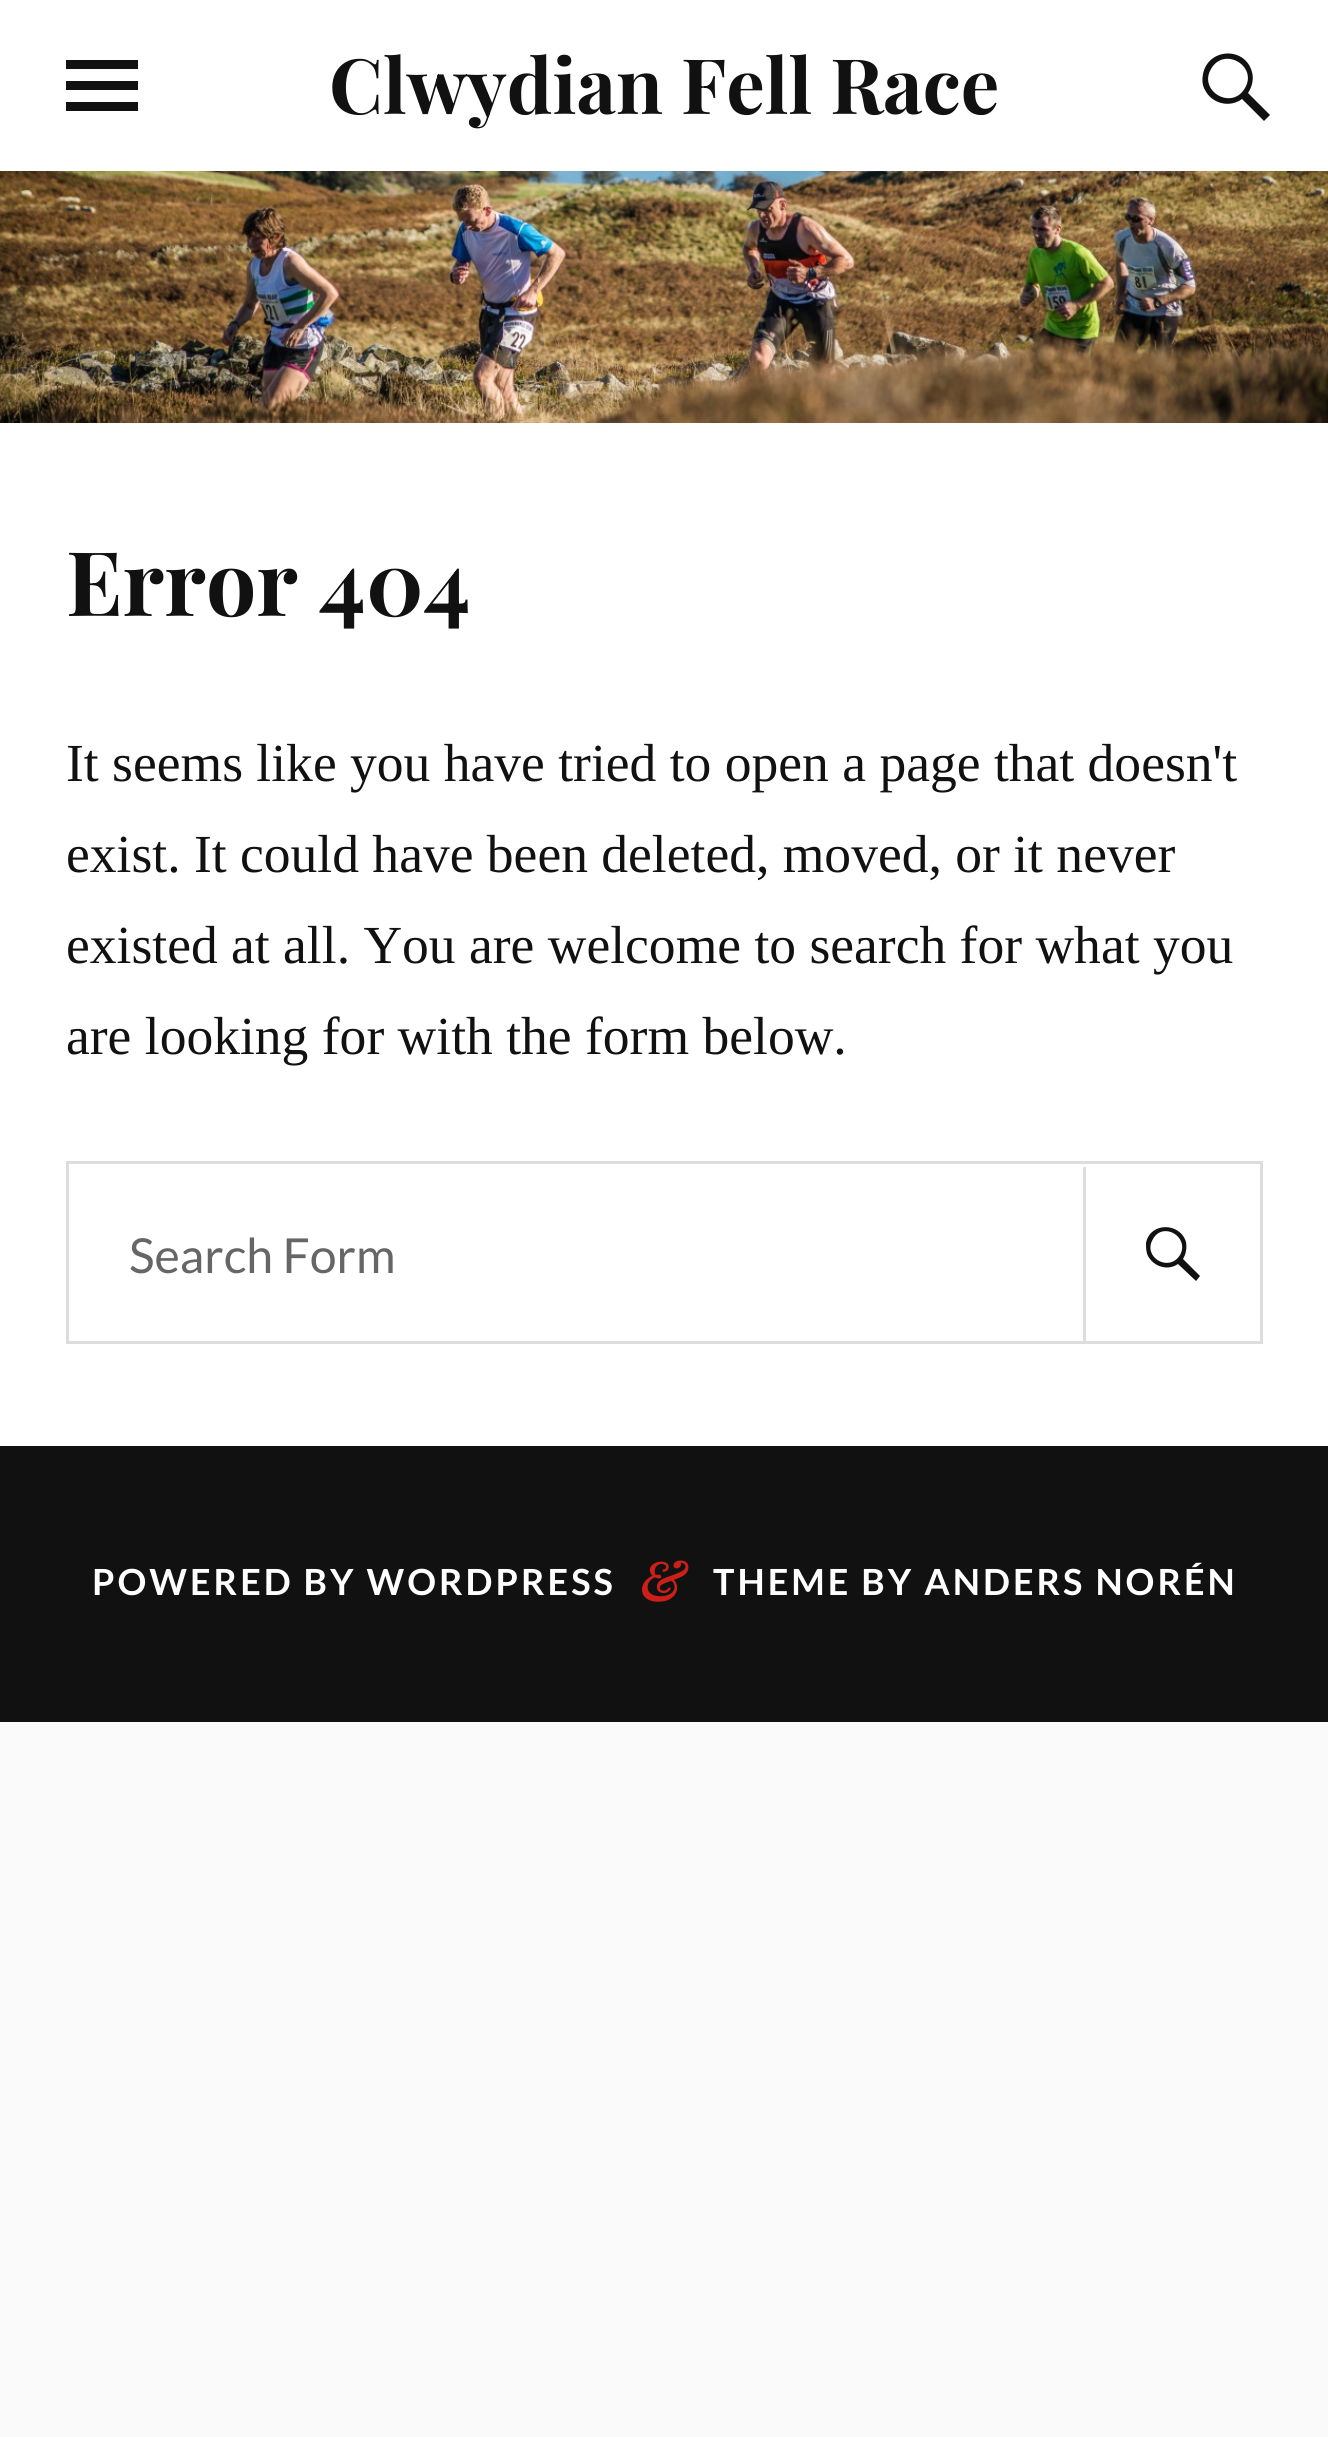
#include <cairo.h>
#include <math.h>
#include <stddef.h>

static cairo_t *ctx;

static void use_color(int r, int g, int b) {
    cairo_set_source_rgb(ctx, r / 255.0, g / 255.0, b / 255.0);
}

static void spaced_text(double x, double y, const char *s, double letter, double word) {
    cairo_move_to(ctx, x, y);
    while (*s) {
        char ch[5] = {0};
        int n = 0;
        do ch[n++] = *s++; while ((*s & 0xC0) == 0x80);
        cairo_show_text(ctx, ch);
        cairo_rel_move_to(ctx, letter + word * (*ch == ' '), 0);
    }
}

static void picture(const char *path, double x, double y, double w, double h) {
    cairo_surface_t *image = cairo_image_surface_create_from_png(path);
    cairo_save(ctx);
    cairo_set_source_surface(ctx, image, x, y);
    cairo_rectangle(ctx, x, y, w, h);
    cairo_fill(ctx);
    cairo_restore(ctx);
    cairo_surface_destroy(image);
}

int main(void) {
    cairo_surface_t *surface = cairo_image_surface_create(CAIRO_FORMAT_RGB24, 1328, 2437);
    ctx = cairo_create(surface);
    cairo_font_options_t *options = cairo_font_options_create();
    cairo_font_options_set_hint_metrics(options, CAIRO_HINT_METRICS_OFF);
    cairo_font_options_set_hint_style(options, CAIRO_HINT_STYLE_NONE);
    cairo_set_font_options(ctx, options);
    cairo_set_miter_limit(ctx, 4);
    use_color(250, 250, 250);
    cairo_paint(ctx);
    use_color(255, 255, 255);
    cairo_rectangle(ctx, 0, 0, 1328, 171);
    cairo_fill(ctx);
    use_color(17, 17, 17);
    cairo_rectangle(ctx, 66, 60, 72, 9);
    cairo_fill(ctx);
    cairo_rectangle(ctx, 66, 81, 72, 9);
    cairo_fill(ctx);
    cairo_rectangle(ctx, 66, 102, 72, 9);
    cairo_fill(ctx);
    cairo_new_path(ctx);
    cairo_move_to(ctx, 1270, 115);
    cairo_line_to(ctx, 1264, 121);
    cairo_line_to(ctx, 1242, 99);
    cairo_curve_to(ctx, 1230, 108, 1212, 104, 1205, 90);
    cairo_curve_to(ctx, 1202, 85, 1202, 79, 1203, 74);
    cairo_curve_to(ctx, 1208, 48, 1245, 46, 1252, 72);
    cairo_curve_to(ctx, 1254, 79, 1252, 87, 1248, 93);
    cairo_close_path(ctx);
    cairo_move_to(ctx, 1211, 69);
    cairo_curve_to(ctx, 1198, 91, 1232, 111, 1245, 88);
    cairo_curve_to(ctx, 1258, 66, 1224, 46, 1211, 69);
    cairo_close_path(ctx);
    cairo_fill(ctx);
    cairo_select_font_face(ctx, "Playfair Display", CAIRO_FONT_SLANT_NORMAL, CAIRO_FONT_WEIGHT_BOLD);
    cairo_set_font_size(ctx, 76.5);
    cairo_move_to(ctx, 329, 114);
    cairo_show_text(ctx, "Clwydian Fell Race");
    picture("img1.png", 0, 171, 1328, 252);
    use_color(255, 255, 255);
    cairo_rectangle(ctx, 0, 423, 1328, 1023);
    cairo_fill(ctx);
    cairo_set_font_size(ctx, 89.25);
    use_color(17, 17, 17);
    cairo_move_to(ctx, 66, 616);
    cairo_show_text(ctx, "Error 404");
    cairo_select_font_face(ctx, "Liberation Serif", CAIRO_FONT_SLANT_NORMAL, CAIRO_FONT_WEIGHT_NORMAL);
    cairo_set_font_size(ctx, 53.55);
    cairo_move_to(ctx, 66, 781);
    cairo_show_text(ctx, "It seems like you have tried to open a page that doesn't");
    cairo_move_to(ctx, 66, 872);
    cairo_show_text(ctx, "exist. It could have been deleted, moved, or it never");
    cairo_move_to(ctx, 66, 963);
    cairo_show_text(ctx, "existed at all. You are welcome to search for what you");
    cairo_move_to(ctx, 66, 1054);
    cairo_show_text(ctx, "are looking for with the form below.");
    cairo_rectangle(ctx, 67.5, 1162.5, 1194, 180);
    use_color(221, 221, 221);
    cairo_set_line_width(ctx, 3);
    cairo_stroke(ctx);
    cairo_select_font_face(ctx, "Lato", CAIRO_FONT_SLANT_NORMAL, CAIRO_FONT_WEIGHT_NORMAL);
    cairo_set_font_size(ctx, 48.25);
    use_color(102, 102, 102);
    cairo_move_to(ctx, 129, 1273);
    cairo_show_text(ctx, "Search Form");
    use_color(221, 221, 221);
    cairo_rectangle(ctx, 1083, 1167, 3, 174);
    cairo_fill(ctx);
    use_color(17, 17, 17);
    cairo_new_path(ctx);
    cairo_move_to(ctx, 1200, 1276);
    cairo_line_to(ctx, 1196, 1281);
    cairo_line_to(ctx, 1178, 1264);
    cairo_curve_to(ctx, 1168, 1271, 1154, 1267, 1148, 1256);
    cairo_curve_to(ctx, 1146, 1252, 1146, 1248, 1146, 1243);
    cairo_curve_to(ctx, 1150, 1222, 1180, 1222, 1186, 1242);
    cairo_curve_to(ctx, 1187, 1248, 1186, 1254, 1183, 1259);
    cairo_close_path(ctx);
    cairo_move_to(ctx, 1153, 1239);
    cairo_curve_to(ctx, 1142, 1257, 1169, 1273, 1180, 1255);
    cairo_curve_to(ctx, 1190, 1237, 1163, 1221, 1153, 1239);
    cairo_close_path(ctx);
    cairo_fill(ctx);
    cairo_rectangle(ctx, 0, 1446, 1328, 276);
    cairo_fill(ctx);
    cairo_select_font_face(ctx, "Lato", CAIRO_FONT_SLANT_NORMAL, CAIRO_FONT_WEIGHT_BOLD);
    cairo_set_font_size(ctx, 36);
    use_color(255, 255, 255);
    spaced_text(92, 1595, "POWERED BY WORDPRESS", 3, 0);
    cairo_select_font_face(ctx, "Playfair Display", CAIRO_FONT_SLANT_ITALIC, CAIRO_FONT_WEIGHT_BOLD);
    cairo_set_font_size(ctx, 54);
    use_color(202, 32, 23);
    spaced_text(640, 1601, "&", 3, 0);
    cairo_select_font_face(ctx, "Lato", CAIRO_FONT_SLANT_NORMAL, CAIRO_FONT_WEIGHT_BOLD);
    cairo_set_font_size(ctx, 36);
    use_color(255, 255, 255);
    spaced_text(713, 1595, "THEME BY ANDERS NORÉN", 3, 0);
    cairo_surface_write_to_png(surface, "result.png");
    cairo_font_options_destroy(options);
    cairo_destroy(ctx);
    cairo_surface_destroy(surface);
    return 0;
}
